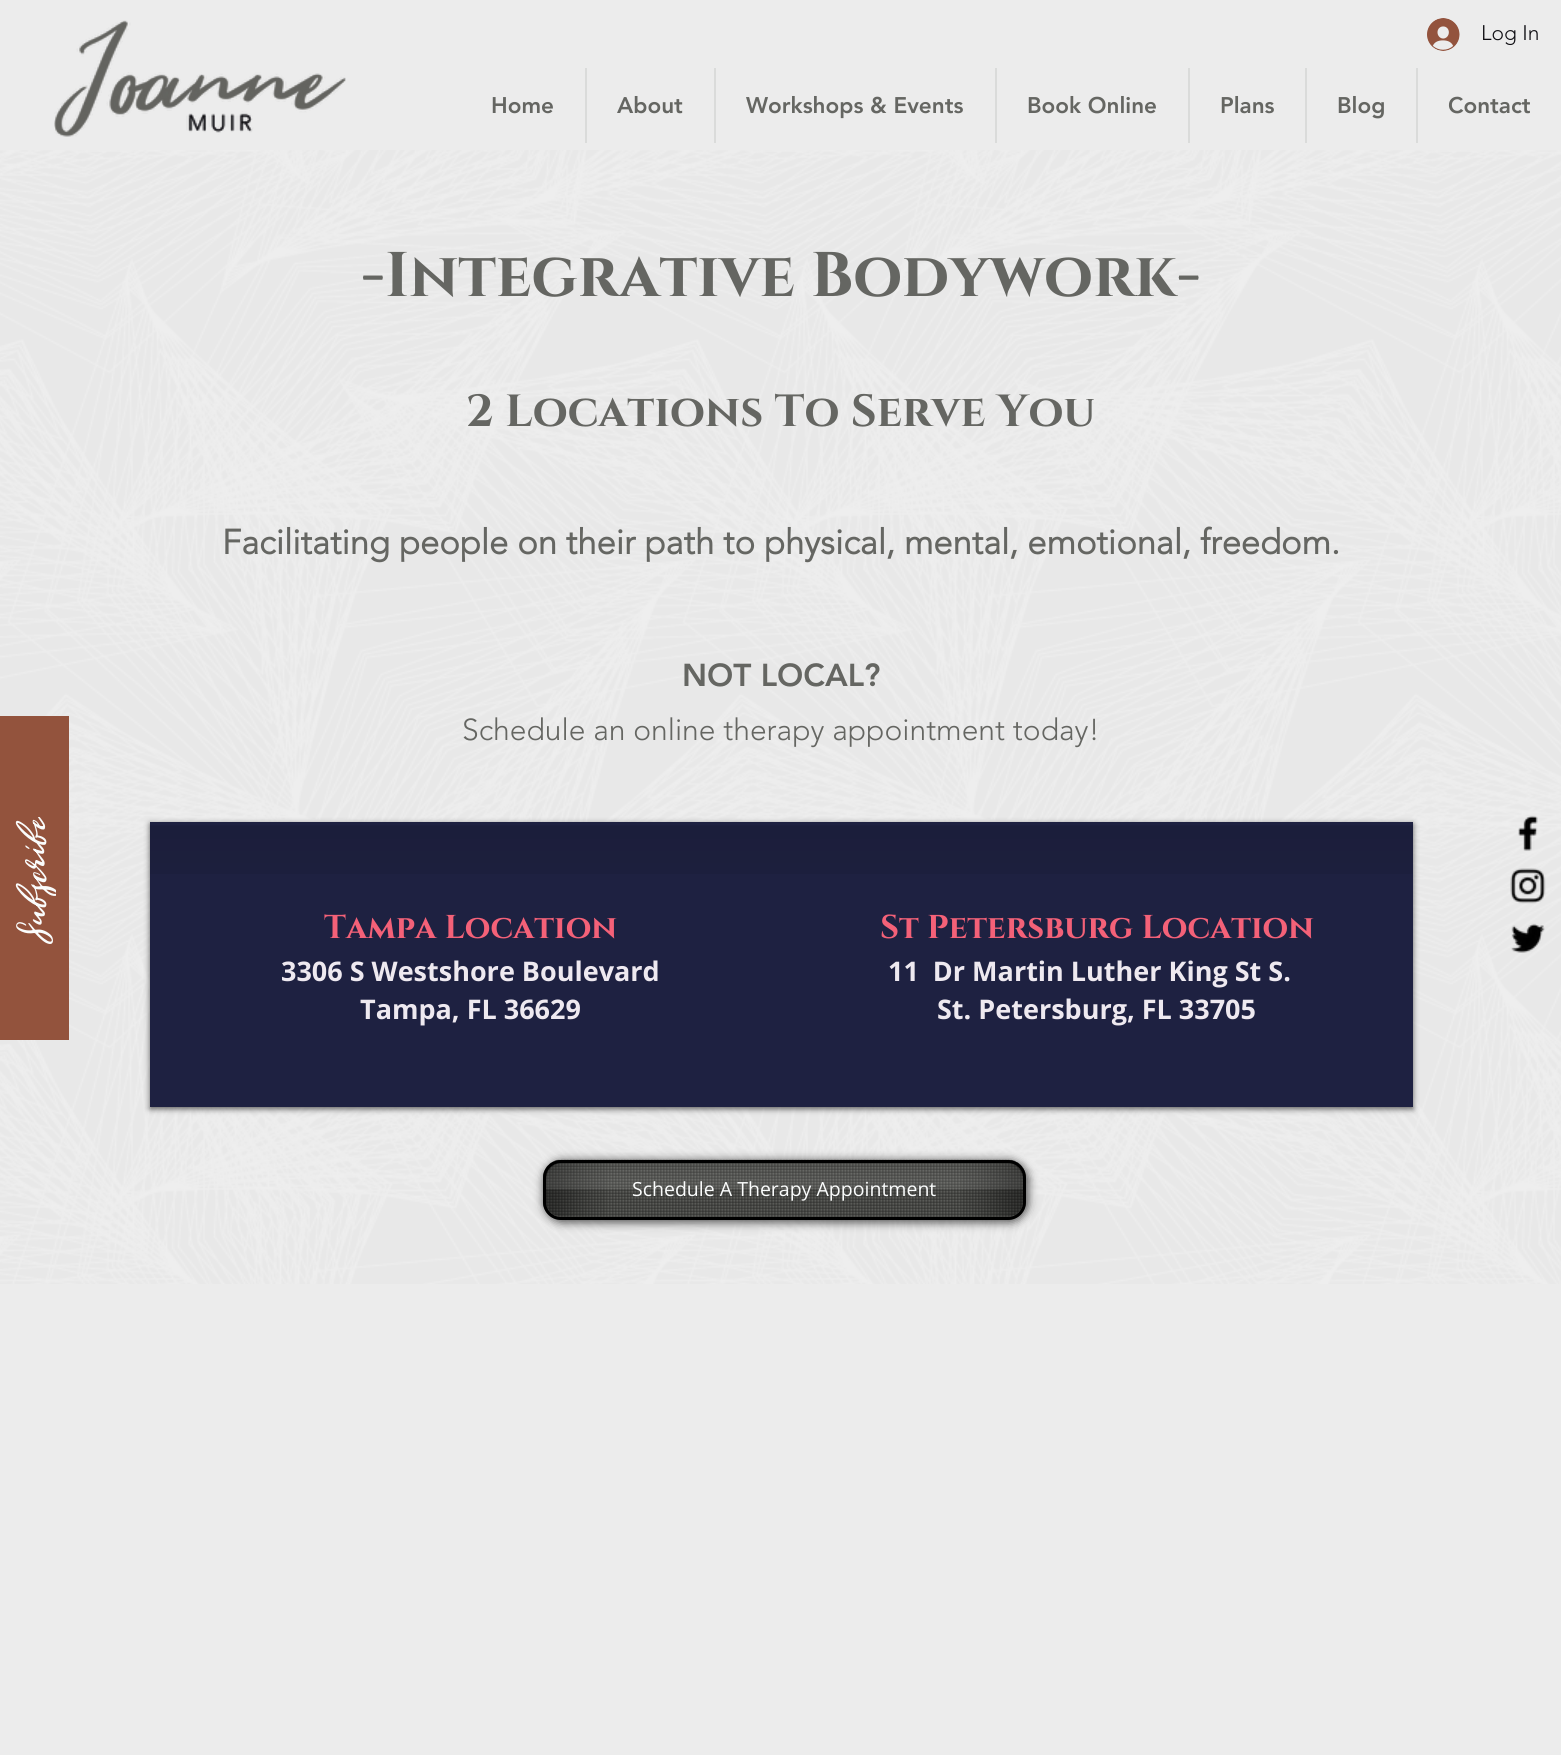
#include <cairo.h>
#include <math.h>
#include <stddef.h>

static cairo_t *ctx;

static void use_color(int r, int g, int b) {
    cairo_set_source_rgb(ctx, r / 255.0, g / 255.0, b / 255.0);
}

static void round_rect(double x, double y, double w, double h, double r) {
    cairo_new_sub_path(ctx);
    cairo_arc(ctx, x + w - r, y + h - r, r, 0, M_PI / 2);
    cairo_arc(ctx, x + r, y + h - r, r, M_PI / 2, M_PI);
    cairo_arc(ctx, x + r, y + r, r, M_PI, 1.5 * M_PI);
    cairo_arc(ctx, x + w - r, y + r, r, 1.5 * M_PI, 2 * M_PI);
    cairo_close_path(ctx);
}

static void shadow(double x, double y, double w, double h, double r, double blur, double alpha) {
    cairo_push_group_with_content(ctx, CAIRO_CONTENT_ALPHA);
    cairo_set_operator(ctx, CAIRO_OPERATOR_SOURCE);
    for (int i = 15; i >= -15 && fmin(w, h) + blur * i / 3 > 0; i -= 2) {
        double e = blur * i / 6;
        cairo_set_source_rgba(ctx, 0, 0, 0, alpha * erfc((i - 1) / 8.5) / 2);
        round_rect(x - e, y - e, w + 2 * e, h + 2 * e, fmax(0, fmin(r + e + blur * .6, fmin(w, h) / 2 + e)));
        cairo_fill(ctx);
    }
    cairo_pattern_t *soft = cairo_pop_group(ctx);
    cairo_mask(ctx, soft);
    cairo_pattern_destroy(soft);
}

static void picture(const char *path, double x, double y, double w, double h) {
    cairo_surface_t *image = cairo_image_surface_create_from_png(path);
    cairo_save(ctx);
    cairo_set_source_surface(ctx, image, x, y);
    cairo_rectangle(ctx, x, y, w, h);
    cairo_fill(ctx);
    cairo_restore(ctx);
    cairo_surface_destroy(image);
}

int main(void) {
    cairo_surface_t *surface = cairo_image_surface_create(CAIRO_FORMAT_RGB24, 1561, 1755);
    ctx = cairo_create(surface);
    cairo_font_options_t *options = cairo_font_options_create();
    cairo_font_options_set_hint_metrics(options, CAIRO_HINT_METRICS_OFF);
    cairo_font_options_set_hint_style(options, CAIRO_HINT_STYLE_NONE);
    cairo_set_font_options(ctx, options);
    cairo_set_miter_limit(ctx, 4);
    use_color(236, 236, 236);
    cairo_paint(ctx);
    picture("img1.png", 54, 20, 292, 117);
    picture("img2.png", 54, 20, 292, 117);
    picture("img3.png", 1427, 18, 33, 33);
    cairo_select_font_face(ctx, "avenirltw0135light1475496 Light", CAIRO_FONT_SLANT_NORMAL, CAIRO_FONT_WEIGHT_NORMAL);
    cairo_set_font_size(ctx, 21);
    use_color(17, 16, 21);
    cairo_move_to(ctx, 1481, 40);
    cairo_show_text(ctx, "Log In");
    cairo_select_font_face(ctx, "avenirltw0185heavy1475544 Black", CAIRO_FONT_SLANT_NORMAL, CAIRO_FONT_WEIGHT_NORMAL);
    cairo_set_font_size(ctx, 22.5);
    use_color(101, 102, 98);
    cairo_move_to(ctx, 491, 113);
    cairo_show_text(ctx, "Home");
    use_color(218, 219, 218);
    cairo_rectangle(ctx, 585, 68, 2, 75);
    cairo_fill(ctx);
    use_color(101, 102, 98);
    cairo_move_to(ctx, 617, 113);
    cairo_show_text(ctx, "About");
    use_color(218, 219, 218);
    cairo_rectangle(ctx, 714, 68, 2, 75);
    cairo_fill(ctx);
    use_color(101, 102, 98);
    cairo_move_to(ctx, 746, 113);
    cairo_show_text(ctx, "Workshops & Events");
    use_color(218, 219, 218);
    cairo_rectangle(ctx, 995, 68, 2, 75);
    cairo_fill(ctx);
    use_color(101, 102, 98);
    cairo_move_to(ctx, 1027, 113);
    cairo_show_text(ctx, "Book Online");
    use_color(218, 219, 218);
    cairo_rectangle(ctx, 1188, 68, 2, 75);
    cairo_fill(ctx);
    use_color(101, 102, 98);
    cairo_move_to(ctx, 1220, 113);
    cairo_show_text(ctx, "Plans");
    use_color(218, 219, 218);
    cairo_rectangle(ctx, 1305, 68, 2, 75);
    cairo_fill(ctx);
    use_color(101, 102, 98);
    cairo_move_to(ctx, 1337, 113);
    cairo_show_text(ctx, "Blog");
    use_color(218, 219, 218);
    cairo_rectangle(ctx, 1416, 68, 2, 75);
    cairo_fill(ctx);
    use_color(101, 102, 98);
    cairo_move_to(ctx, 1448, 113);
    cairo_show_text(ctx, "Contact");
    use_color(232, 232, 232);
    cairo_rectangle(ctx, 0, 150, 1561, 1134);
    cairo_fill(ctx);
    picture("img4.png", 0, 150, 1561, 1134);
    use_color(147, 83, 61);
    cairo_rectangle(ctx, 0, 716, 69, 324);
    cairo_fill(ctx);
    cairo_save(ctx);
    cairo_new_path(ctx);
    cairo_move_to(ctx, 13.5, 944);
    cairo_line_to(ctx, 13.5, 817);
    cairo_line_to(ctx, 55.5, 817);
    cairo_line_to(ctx, 55.5, 944);
    cairo_close_path(ctx);
    cairo_clip(ctx);
    cairo_select_font_face(ctx, "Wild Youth", CAIRO_FONT_SLANT_NORMAL, CAIRO_FONT_WEIGHT_NORMAL);
    cairo_set_font_size(ctx, 30);
    use_color(250, 252, 252);
    cairo_save(ctx);
    cairo_translate(ctx, 47, 944);
    cairo_rotate(ctx, -90 * M_PI / 180);
    cairo_move_to(ctx, 0, 0);
    cairo_show_text(ctx, "Subscribe");
    cairo_restore(ctx);
    cairo_restore(ctx);
    cairo_select_font_face(ctx, "Cinzel", CAIRO_FONT_SLANT_NORMAL, CAIRO_FONT_WEIGHT_BOLD);
    cairo_set_font_size(ctx, 63);
    use_color(101, 102, 98);
    cairo_move_to(ctx, 361, 296);
    cairo_show_text(ctx, "-Integrative Bodywork-");
    cairo_set_font_size(ctx, 45);
    cairo_move_to(ctx, 466, 426);
    cairo_show_text(ctx, "2 Locations To Serve You");
    cairo_select_font_face(ctx, "avenirltw0135light1475496", CAIRO_FONT_SLANT_NORMAL, CAIRO_FONT_WEIGHT_BOLD);
    cairo_set_font_size(ctx, 34.5);
    cairo_move_to(ctx, 222, 554);
    cairo_show_text(ctx, "Facilitating people on their path to physical, mental, emotional, freedom.");
    cairo_select_font_face(ctx, "avenirltw0185heavy1475544 Black", CAIRO_FONT_SLANT_NORMAL, CAIRO_FONT_WEIGHT_NORMAL);
    cairo_set_font_size(ctx, 31.5);
    cairo_move_to(ctx, 682, 686);
    cairo_show_text(ctx, "NOT LOCAL?");
    cairo_select_font_face(ctx, "avenirltw0135light1475496 Light", CAIRO_FONT_SLANT_NORMAL, CAIRO_FONT_WEIGHT_NORMAL);
    cairo_set_font_size(ctx, 30);
    cairo_move_to(ctx, 462, 740);
    cairo_show_text(ctx, "Schedule an online therapy appointment today!");
    use_color(0, 0, 0);
    shadow(150, 824, 1263, 285, 0, 3, 0.6);
    use_color(30, 33, 65);
    cairo_rectangle(ctx, 150, 822, 1263, 285);
    cairo_fill(ctx);
    picture("img5.png", 150, 825, 1263, 49);
    cairo_select_font_face(ctx, "Cinzel", CAIRO_FONT_SLANT_NORMAL, CAIRO_FONT_WEIGHT_BOLD);
    cairo_set_font_size(ctx, 33);
    use_color(244, 97, 120);
    cairo_move_to(ctx, 324, 938);
    cairo_show_text(ctx, "Tampa Location");
    cairo_select_font_face(ctx, "Open Sans", CAIRO_FONT_SLANT_NORMAL, CAIRO_FONT_WEIGHT_BOLD);
    cairo_set_font_size(ctx, 27);
    use_color(238, 233, 240);
    cairo_move_to(ctx, 281, 981);
    cairo_show_text(ctx, "3306 S Westshore Boulevard");
    cairo_move_to(ctx, 360, 1019);
    cairo_show_text(ctx, "Tampa, FL 36629");
    cairo_select_font_face(ctx, "Cinzel", CAIRO_FONT_SLANT_NORMAL, CAIRO_FONT_WEIGHT_BOLD);
    cairo_set_font_size(ctx, 33);
    use_color(244, 97, 120);
    cairo_move_to(ctx, 880, 938);
    cairo_show_text(ctx, "St Petersburg Location");
    cairo_select_font_face(ctx, "Open Sans", CAIRO_FONT_SLANT_NORMAL, CAIRO_FONT_WEIGHT_BOLD);
    cairo_set_font_size(ctx, 27);
    use_color(238, 233, 240);
    cairo_move_to(ctx, 888, 981);
    cairo_show_text(ctx, "11  Dr Martin Luther King St S.");
    cairo_move_to(ctx, 937, 1019);
    cairo_show_text(ctx, "St. Petersburg, FL 33705");
    use_color(0, 0, 0);
    shadow(543, 1160, 486, 63, 20, 4.5, 0.6);
    use_color(101, 102, 98);
    round_rect(543, 1160, 483, 60, 18);
    cairo_fill(ctx);
    picture("img6.png", 543, 1159, 483, 61);
    round_rect(544.5, 1161.5, 480, 57, 16.5);
    use_color(0, 0, 0);
    cairo_set_line_width(ctx, 3);
    cairo_stroke(ctx);
    picture("img7.png", 546, 1163, 60, 54);
    cairo_select_font_face(ctx, "Open Sans", CAIRO_FONT_SLANT_NORMAL, CAIRO_FONT_WEIGHT_NORMAL);
    cairo_set_font_size(ctx, 19.5);
    use_color(250, 252, 252);
    cairo_move_to(ctx, 632, 1196);
    cairo_show_text(ctx, "Schedule A Therapy Appointment");
    picture("img9.png", 962, 1163, 61, 54);
    picture("img8.png", 546, 1163, 477, 27);
    picture("img10.png", 1518, 815, 20, 36);
    picture("img11.png", 1510, 868, 36, 36);
    picture("img12.png", 1511, 923, 34, 30);
    cairo_surface_write_to_png(surface, "result.png");
    cairo_font_options_destroy(options);
    cairo_destroy(ctx);
    cairo_surface_destroy(surface);
    return 0;
}
